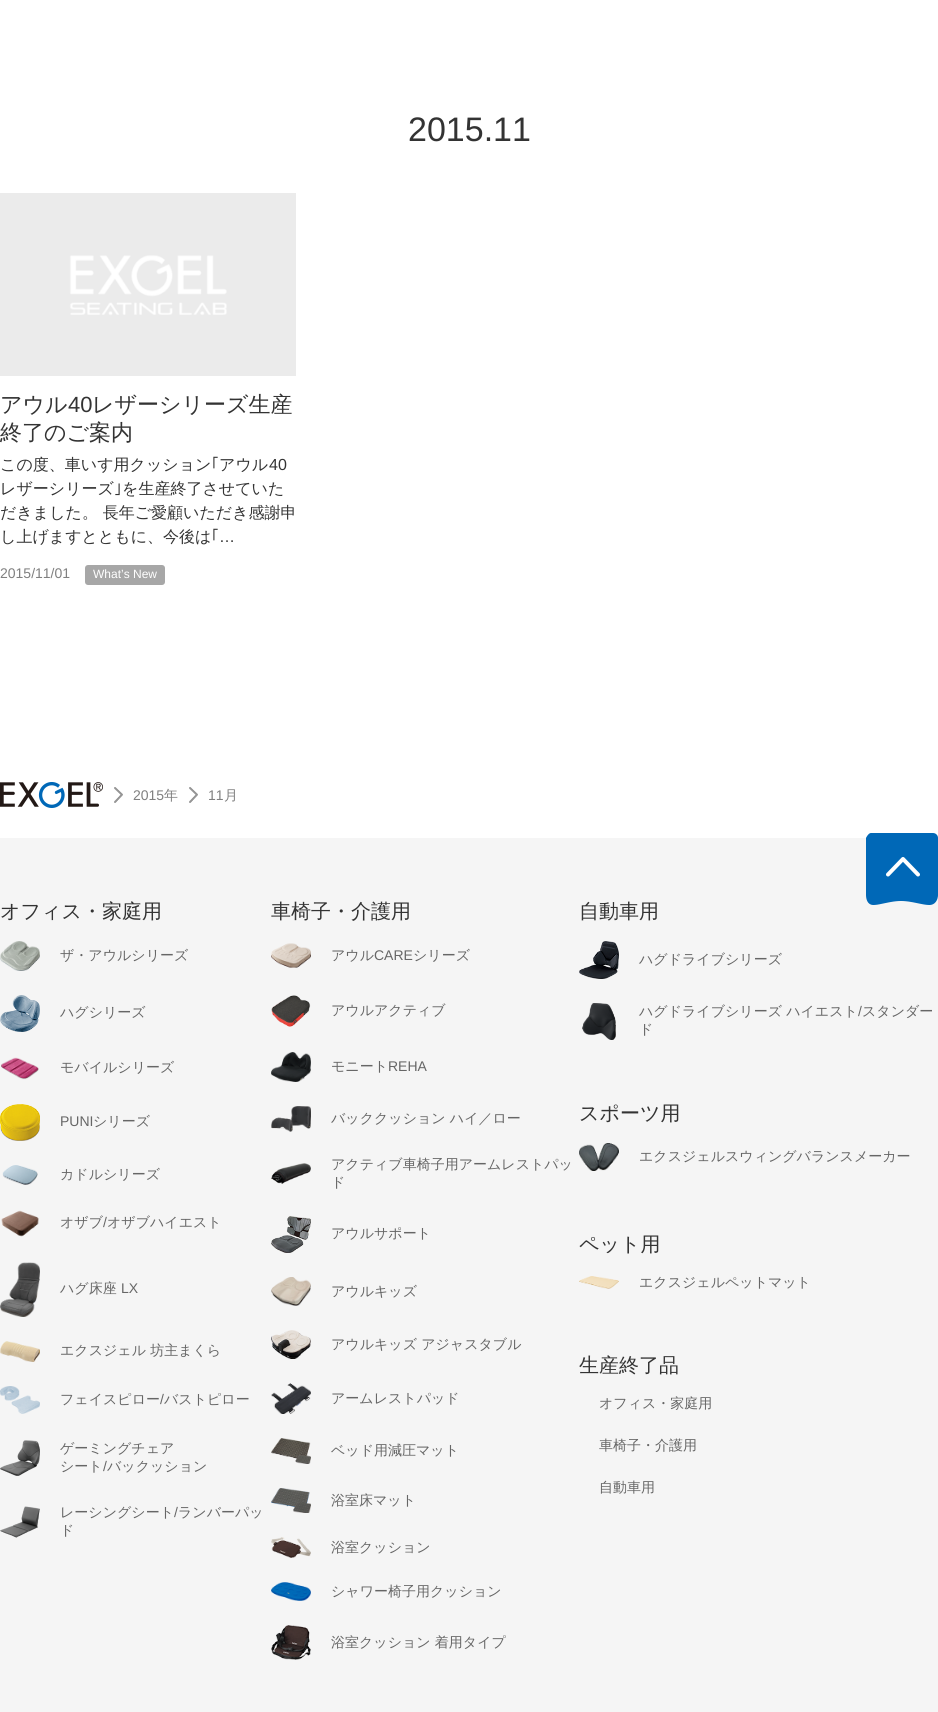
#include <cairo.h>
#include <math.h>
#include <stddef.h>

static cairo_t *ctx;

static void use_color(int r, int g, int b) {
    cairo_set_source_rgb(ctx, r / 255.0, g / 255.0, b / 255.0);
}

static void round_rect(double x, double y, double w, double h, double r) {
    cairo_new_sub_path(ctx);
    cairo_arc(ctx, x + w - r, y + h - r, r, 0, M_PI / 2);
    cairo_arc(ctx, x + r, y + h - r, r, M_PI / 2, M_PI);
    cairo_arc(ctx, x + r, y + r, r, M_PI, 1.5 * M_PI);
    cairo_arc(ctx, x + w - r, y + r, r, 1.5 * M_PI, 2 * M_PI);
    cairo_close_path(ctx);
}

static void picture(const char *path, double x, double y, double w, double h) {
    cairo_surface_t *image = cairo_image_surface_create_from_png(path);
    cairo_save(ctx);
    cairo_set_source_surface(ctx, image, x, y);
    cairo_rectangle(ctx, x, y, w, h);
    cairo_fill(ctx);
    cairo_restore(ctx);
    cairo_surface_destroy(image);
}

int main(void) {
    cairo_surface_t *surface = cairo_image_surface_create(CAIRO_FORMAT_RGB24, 938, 1712);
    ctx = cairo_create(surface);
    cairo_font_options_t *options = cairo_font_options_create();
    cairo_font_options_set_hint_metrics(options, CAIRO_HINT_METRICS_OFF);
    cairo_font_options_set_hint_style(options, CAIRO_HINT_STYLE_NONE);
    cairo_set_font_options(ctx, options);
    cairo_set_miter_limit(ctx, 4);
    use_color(255, 255, 255);
    cairo_paint(ctx);
    cairo_select_font_face(ctx, "Liberation Sans", CAIRO_FONT_SLANT_NORMAL, CAIRO_FONT_WEIGHT_NORMAL);
    cairo_set_font_size(ctx, 34);
    use_color(51, 51, 51);
    cairo_move_to(ctx, 408, 141);
    cairo_show_text(ctx, "2015.11");
    picture("img1.png", 0, 193, 296, 183);
    cairo_select_font_face(ctx, "WenQuanYi Zen Hei Medium", CAIRO_FONT_SLANT_NORMAL, CAIRO_FONT_WEIGHT_NORMAL);
    cairo_set_font_size(ctx, 22);
    cairo_move_to(ctx, 0, 412);
    cairo_show_text(ctx, "アウル");
    cairo_select_font_face(ctx, "Liberation Sans", CAIRO_FONT_SLANT_NORMAL, CAIRO_FONT_WEIGHT_NORMAL);
    cairo_move_to(ctx, 68, 412);
    cairo_show_text(ctx, "40");
    cairo_select_font_face(ctx, "WenQuanYi Zen Hei Medium", CAIRO_FONT_SLANT_NORMAL, CAIRO_FONT_WEIGHT_NORMAL);
    cairo_move_to(ctx, 92, 412);
    cairo_show_text(ctx, "レザーシリーズ生産");
    cairo_move_to(ctx, 0, 440);
    cairo_show_text(ctx, "終了のご案内");
    cairo_set_font_size(ctx, 16);
    cairo_move_to(ctx, 0, 470);
    cairo_show_text(ctx, "この度、車いす用クッション");
    cairo_select_font_face(ctx, "IPAPGothic", CAIRO_FONT_SLANT_NORMAL, CAIRO_FONT_WEIGHT_NORMAL);
    cairo_move_to(ctx, 211, 470);
    cairo_show_text(ctx, "｢");
    cairo_select_font_face(ctx, "WenQuanYi Zen Hei Medium", CAIRO_FONT_SLANT_NORMAL, CAIRO_FONT_WEIGHT_NORMAL);
    cairo_move_to(ctx, 219, 470);
    cairo_show_text(ctx, "アウル");
    cairo_select_font_face(ctx, "Liberation Sans", CAIRO_FONT_SLANT_NORMAL, CAIRO_FONT_WEIGHT_NORMAL);
    cairo_move_to(ctx, 269, 470);
    cairo_show_text(ctx, "40");
    cairo_select_font_face(ctx, "WenQuanYi Zen Hei Medium", CAIRO_FONT_SLANT_NORMAL, CAIRO_FONT_WEIGHT_NORMAL);
    cairo_move_to(ctx, 0, 494);
    cairo_show_text(ctx, "レザーシリーズ");
    cairo_select_font_face(ctx, "IPAPGothic", CAIRO_FONT_SLANT_NORMAL, CAIRO_FONT_WEIGHT_NORMAL);
    cairo_move_to(ctx, 114, 494);
    cairo_show_text(ctx, "｣");
    cairo_select_font_face(ctx, "WenQuanYi Zen Hei Medium", CAIRO_FONT_SLANT_NORMAL, CAIRO_FONT_WEIGHT_NORMAL);
    cairo_move_to(ctx, 122, 494);
    cairo_show_text(ctx, "を生産終了させていた");
    cairo_move_to(ctx, 0, 518);
    cairo_show_text(ctx, "だきました。 長年ご愛顧いただき感謝申");
    cairo_move_to(ctx, 0, 542);
    cairo_show_text(ctx, "し上げますとともに、今後は");
    cairo_select_font_face(ctx, "IPAPGothic", CAIRO_FONT_SLANT_NORMAL, CAIRO_FONT_WEIGHT_NORMAL);
    cairo_move_to(ctx, 211, 542);
    cairo_show_text(ctx, "｢");
    cairo_select_font_face(ctx, "Liberation Sans", CAIRO_FONT_SLANT_NORMAL, CAIRO_FONT_WEIGHT_NORMAL);
    cairo_move_to(ctx, 219, 542);
    cairo_show_text(ctx, "…");
    cairo_set_font_size(ctx, 14);
    use_color(128, 128, 128);
    cairo_move_to(ctx, 0, 578);
    cairo_show_text(ctx, "2015/11/01");
    use_color(167, 167, 167);
    round_rect(85, 565, 80, 20, 3);
    cairo_fill(ctx);
    cairo_set_font_size(ctx, 12);
    use_color(255, 255, 255);
    cairo_move_to(ctx, 93, 578);
    cairo_show_text(ctx, "What’s New");
    picture("img2.png", 0, 782, 103, 26);
    picture("img3.png", 114, 787, 9, 16);
    cairo_set_font_size(ctx, 14);
    use_color(128, 128, 128);
    cairo_move_to(ctx, 133, 800);
    cairo_show_text(ctx, "2015");
    cairo_select_font_face(ctx, "WenQuanYi Zen Hei Medium", CAIRO_FONT_SLANT_NORMAL, CAIRO_FONT_WEIGHT_NORMAL);
    cairo_move_to(ctx, 164, 800);
    cairo_show_text(ctx, "年");
    picture("img3.png", 189, 787, 9, 16);
    cairo_select_font_face(ctx, "Liberation Sans", CAIRO_FONT_SLANT_NORMAL, CAIRO_FONT_WEIGHT_NORMAL);
    cairo_move_to(ctx, 208, 800);
    cairo_show_text(ctx, "11");
    cairo_select_font_face(ctx, "WenQuanYi Zen Hei Medium", CAIRO_FONT_SLANT_NORMAL, CAIRO_FONT_WEIGHT_NORMAL);
    cairo_move_to(ctx, 224, 800);
    cairo_show_text(ctx, "月");
    use_color(245, 245, 245);
    cairo_rectangle(ctx, 0, 838, 938, 874);
    cairo_fill(ctx);
    picture("img4.png", 866, 833, 72, 72);
    cairo_set_font_size(ctx, 20);
    use_color(51, 51, 51);
    cairo_move_to(ctx, 0, 918);
    cairo_show_text(ctx, "オフィス・家庭用");
    picture("img5.png", 0, 941, 40, 30);
    cairo_set_font_size(ctx, 14);
    use_color(102, 102, 102);
    cairo_move_to(ctx, 60, 960);
    cairo_show_text(ctx, "ザ・アウルシリーズ");
    picture("img6.png", 0, 995, 40, 37);
    cairo_move_to(ctx, 60, 1017);
    cairo_show_text(ctx, "ハグシリーズ");
    picture("img7.png", 1, 1057, 38, 23);
    cairo_move_to(ctx, 60, 1072);
    cairo_show_text(ctx, "モバイルシリーズ");
    picture("img8.png", 0, 1104, 40, 37);
    cairo_select_font_face(ctx, "Liberation Sans", CAIRO_FONT_SLANT_NORMAL, CAIRO_FONT_WEIGHT_NORMAL);
    cairo_move_to(ctx, 60, 1126);
    cairo_show_text(ctx, "PUNI");
    cairo_select_font_face(ctx, "WenQuanYi Zen Hei Medium", CAIRO_FONT_SLANT_NORMAL, CAIRO_FONT_WEIGHT_NORMAL);
    cairo_move_to(ctx, 93, 1126);
    cairo_show_text(ctx, "シリーズ");
    picture("img9.png", 2, 1165, 36, 20);
    cairo_move_to(ctx, 60, 1179);
    cairo_show_text(ctx, "カドルシリーズ");
    picture("img10.png", 1, 1210, 38, 27);
    cairo_move_to(ctx, 60, 1227);
    cairo_show_text(ctx, "オザブ");
    cairo_select_font_face(ctx, "Liberation Sans", CAIRO_FONT_SLANT_NORMAL, CAIRO_FONT_WEIGHT_NORMAL);
    cairo_move_to(ctx, 103, 1227);
    cairo_show_text(ctx, "/");
    cairo_select_font_face(ctx, "WenQuanYi Zen Hei Medium", CAIRO_FONT_SLANT_NORMAL, CAIRO_FONT_WEIGHT_NORMAL);
    cairo_move_to(ctx, 107, 1227);
    cairo_show_text(ctx, "オザブハイエスト");
    picture("img11.png", 0, 1262, 40, 55);
    cairo_move_to(ctx, 60, 1293);
    cairo_show_text(ctx, "ハグ床座");
    cairo_select_font_face(ctx, "Liberation Sans", CAIRO_FONT_SLANT_NORMAL, CAIRO_FONT_WEIGHT_NORMAL);
    cairo_move_to(ctx, 121, 1293);
    cairo_show_text(ctx, "LX");
    picture("img12.png", 0, 1341, 40, 21);
    cairo_select_font_face(ctx, "WenQuanYi Zen Hei Medium", CAIRO_FONT_SLANT_NORMAL, CAIRO_FONT_WEIGHT_NORMAL);
    cairo_move_to(ctx, 60, 1355);
    cairo_show_text(ctx, "エクスジェル 坊主まくら");
    picture("img13.png", 0, 1386, 40, 28);
    cairo_move_to(ctx, 60, 1404);
    cairo_show_text(ctx, "フェイスピロー");
    cairo_select_font_face(ctx, "Liberation Sans", CAIRO_FONT_SLANT_NORMAL, CAIRO_FONT_WEIGHT_NORMAL);
    cairo_move_to(ctx, 160, 1404);
    cairo_show_text(ctx, "/");
    cairo_select_font_face(ctx, "WenQuanYi Zen Hei Medium", CAIRO_FONT_SLANT_NORMAL, CAIRO_FONT_WEIGHT_NORMAL);
    cairo_move_to(ctx, 164, 1404);
    cairo_show_text(ctx, "バストピロー");
    picture("img14.png", 0, 1440, 40, 36);
    cairo_move_to(ctx, 60, 1453);
    cairo_show_text(ctx, "ゲーミングチェア");
    cairo_move_to(ctx, 60, 1471);
    cairo_show_text(ctx, "シート");
    cairo_select_font_face(ctx, "Liberation Sans", CAIRO_FONT_SLANT_NORMAL, CAIRO_FONT_WEIGHT_NORMAL);
    cairo_move_to(ctx, 103, 1471);
    cairo_show_text(ctx, "/");
    cairo_select_font_face(ctx, "WenQuanYi Zen Hei Medium", CAIRO_FONT_SLANT_NORMAL, CAIRO_FONT_WEIGHT_NORMAL);
    cairo_move_to(ctx, 107, 1471);
    cairo_show_text(ctx, "バックッション");
    picture("img15.png", 0, 1506, 40, 32);
    cairo_move_to(ctx, 60, 1517);
    cairo_show_text(ctx, "レーシングシート");
    cairo_select_font_face(ctx, "Liberation Sans", CAIRO_FONT_SLANT_NORMAL, CAIRO_FONT_WEIGHT_NORMAL);
    cairo_move_to(ctx, 174, 1517);
    cairo_show_text(ctx, "/");
    cairo_select_font_face(ctx, "WenQuanYi Zen Hei Medium", CAIRO_FONT_SLANT_NORMAL, CAIRO_FONT_WEIGHT_NORMAL);
    cairo_move_to(ctx, 178, 1517);
    cairo_show_text(ctx, "ランバーパッ");
    cairo_move_to(ctx, 60, 1535);
    cairo_show_text(ctx, "ド");
    cairo_set_font_size(ctx, 20);
    use_color(51, 51, 51);
    cairo_move_to(ctx, 271, 918);
    cairo_show_text(ctx, "車椅子・介護用");
    picture("img16.png", 271, 943, 40, 25);
    cairo_set_font_size(ctx, 14);
    use_color(102, 102, 102);
    cairo_move_to(ctx, 331, 960);
    cairo_show_text(ctx, "アウル");
    cairo_select_font_face(ctx, "Liberation Sans", CAIRO_FONT_SLANT_NORMAL, CAIRO_FONT_WEIGHT_NORMAL);
    cairo_move_to(ctx, 374, 960);
    cairo_show_text(ctx, "CARE");
    cairo_select_font_face(ctx, "WenQuanYi Zen Hei Medium", CAIRO_FONT_SLANT_NORMAL, CAIRO_FONT_WEIGHT_NORMAL);
    cairo_move_to(ctx, 413, 960);
    cairo_show_text(ctx, "シリーズ");
    picture("img17.png", 271, 995, 40, 32);
    cairo_move_to(ctx, 331, 1015);
    cairo_show_text(ctx, "アウルアクティブ");
    picture("img18.png", 271, 1052, 40, 30);
    cairo_move_to(ctx, 331, 1071);
    cairo_show_text(ctx, "モニート");
    cairo_select_font_face(ctx, "Liberation Sans", CAIRO_FONT_SLANT_NORMAL, CAIRO_FONT_WEIGHT_NORMAL);
    cairo_move_to(ctx, 388, 1071);
    cairo_show_text(ctx, "REHA");
    picture("img19.png", 271, 1106, 40, 26);
    cairo_select_font_face(ctx, "WenQuanYi Zen Hei Medium", CAIRO_FONT_SLANT_NORMAL, CAIRO_FONT_WEIGHT_NORMAL);
    cairo_move_to(ctx, 331, 1123);
    cairo_show_text(ctx, "バッククッション ハイ／ロー");
    picture("img20.png", 271, 1163, 40, 21);
    cairo_move_to(ctx, 331, 1169);
    cairo_show_text(ctx, "アクティブ車椅子用アームレストパッ");
    cairo_move_to(ctx, 331, 1187);
    cairo_show_text(ctx, "ド");
    picture("img21.png", 271, 1216, 40, 37);
    cairo_move_to(ctx, 331, 1238);
    cairo_show_text(ctx, "アウルサポート");
    picture("img22.png", 271, 1277, 40, 29);
    cairo_move_to(ctx, 331, 1296);
    cairo_show_text(ctx, "アウルキッズ");
    picture("img23.png", 271, 1330, 40, 29);
    cairo_move_to(ctx, 331, 1349);
    cairo_show_text(ctx, "アウルキッズ アジャスタブル");
    picture("img24.png", 271, 1383, 40, 31);
    cairo_move_to(ctx, 331, 1403);
    cairo_show_text(ctx, "アームレストパッド");
    picture("img25.png", 271, 1438, 40, 26);
    cairo_move_to(ctx, 331, 1455);
    cairo_show_text(ctx, "ベッド用減圧マット");
    picture("img26.png", 271, 1488, 40, 25);
    cairo_move_to(ctx, 331, 1505);
    cairo_show_text(ctx, "浴室床マット");
    picture("img27.png", 271, 1537, 40, 21);
    cairo_move_to(ctx, 331, 1552);
    cairo_show_text(ctx, "浴室クッション");
    picture("img28.png", 271, 1582, 40, 19);
    cairo_move_to(ctx, 331, 1596);
    cairo_show_text(ctx, "シャワー椅子用クッション");
    picture("img29.png", 271, 1625, 40, 35);
    cairo_move_to(ctx, 331, 1647);
    cairo_show_text(ctx, "浴室クッション 着用タイプ");
    cairo_set_font_size(ctx, 20);
    use_color(51, 51, 51);
    cairo_move_to(ctx, 579, 918);
    cairo_show_text(ctx, "自動車用");
    picture("img30.png", 579, 941, 40, 38);
    cairo_set_font_size(ctx, 14);
    use_color(102, 102, 102);
    cairo_move_to(ctx, 639, 964);
    cairo_show_text(ctx, "ハグドライブシリーズ");
    picture("img31.png", 582, 1003, 34, 37);
    cairo_move_to(ctx, 639, 1016);
    cairo_show_text(ctx, "ハグドライブシリーズ ハイエスト");
    cairo_select_font_face(ctx, "Liberation Sans", CAIRO_FONT_SLANT_NORMAL, CAIRO_FONT_WEIGHT_NORMAL);
    cairo_move_to(ctx, 858, 1016);
    cairo_show_text(ctx, "/");
    cairo_select_font_face(ctx, "WenQuanYi Zen Hei Medium", CAIRO_FONT_SLANT_NORMAL, CAIRO_FONT_WEIGHT_NORMAL);
    cairo_move_to(ctx, 862, 1016);
    cairo_show_text(ctx, "スタンダー");
    cairo_move_to(ctx, 639, 1034);
    cairo_show_text(ctx, "ド");
    cairo_set_font_size(ctx, 20);
    use_color(51, 51, 51);
    cairo_move_to(ctx, 579, 1120);
    cairo_show_text(ctx, "スポーツ用");
    picture("img32.png", 579, 1143, 40, 28);
    cairo_set_font_size(ctx, 14);
    use_color(102, 102, 102);
    cairo_move_to(ctx, 639, 1161);
    cairo_show_text(ctx, "エクスジェルスウィングバランスメーカー");
    cairo_set_font_size(ctx, 20);
    use_color(51, 51, 51);
    cairo_move_to(ctx, 579, 1251);
    cairo_show_text(ctx, "ペット用");
    picture("img33.png", 579, 1276, 40, 13);
    cairo_set_font_size(ctx, 14);
    use_color(102, 102, 102);
    cairo_move_to(ctx, 639, 1287);
    cairo_show_text(ctx, "エクスジェルペットマット");
    cairo_set_font_size(ctx, 20);
    use_color(51, 51, 51);
    cairo_move_to(ctx, 579, 1372);
    cairo_show_text(ctx, "生産終了品");
    cairo_set_font_size(ctx, 14);
    use_color(102, 102, 102);
    cairo_move_to(ctx, 599, 1408);
    cairo_show_text(ctx, "オフィス・家庭用");
    cairo_move_to(ctx, 599, 1450);
    cairo_show_text(ctx, "車椅子・介護用");
    cairo_move_to(ctx, 599, 1492);
    cairo_show_text(ctx, "自動車用");
    cairo_surface_write_to_png(surface, "result.png");
    cairo_font_options_destroy(options);
    cairo_destroy(ctx);
    cairo_surface_destroy(surface);
    return 0;
}
